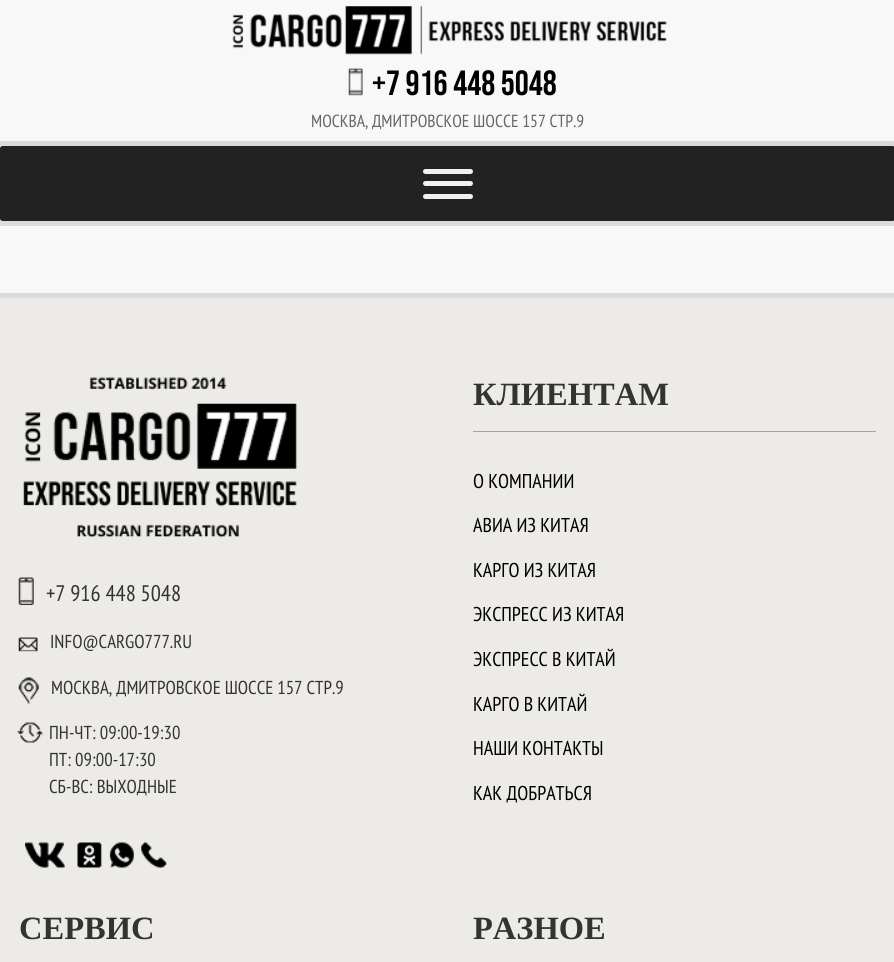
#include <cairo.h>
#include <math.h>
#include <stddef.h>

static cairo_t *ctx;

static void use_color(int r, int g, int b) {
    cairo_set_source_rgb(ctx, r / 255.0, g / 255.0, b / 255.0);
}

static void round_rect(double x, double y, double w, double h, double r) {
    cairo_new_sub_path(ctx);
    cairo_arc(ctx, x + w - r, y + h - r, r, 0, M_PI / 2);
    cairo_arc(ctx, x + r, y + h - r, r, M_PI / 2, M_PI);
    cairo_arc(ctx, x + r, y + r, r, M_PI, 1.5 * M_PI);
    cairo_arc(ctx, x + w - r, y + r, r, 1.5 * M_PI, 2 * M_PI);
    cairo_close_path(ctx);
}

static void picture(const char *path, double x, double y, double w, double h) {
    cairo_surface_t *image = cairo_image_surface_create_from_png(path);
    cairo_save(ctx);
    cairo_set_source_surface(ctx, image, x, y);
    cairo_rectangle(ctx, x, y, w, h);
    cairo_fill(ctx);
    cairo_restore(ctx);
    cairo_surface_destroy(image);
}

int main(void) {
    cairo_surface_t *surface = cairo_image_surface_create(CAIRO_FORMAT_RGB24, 894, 962);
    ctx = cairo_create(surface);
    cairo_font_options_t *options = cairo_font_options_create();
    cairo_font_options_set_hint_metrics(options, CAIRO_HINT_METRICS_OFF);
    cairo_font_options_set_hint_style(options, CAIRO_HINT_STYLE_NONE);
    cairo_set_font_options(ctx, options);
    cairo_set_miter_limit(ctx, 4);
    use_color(248, 248, 248);
    cairo_paint(ctx);
    picture("img1.png", 232, 6, 435, 49);
    picture("img2.png", 348, 68, 15, 28);
    cairo_select_font_face(ctx, "Bebas Neue", CAIRO_FONT_SLANT_NORMAL, CAIRO_FONT_WEIGHT_NORMAL);
    cairo_set_font_size(ctx, 35);
    use_color(0, 0, 0);
    cairo_move_to(ctx, 372, 95);
    cairo_show_text(ctx, "+7 916 448 5048");
    cairo_select_font_face(ctx, "PT Sans Narrow", CAIRO_FONT_SLANT_NORMAL, CAIRO_FONT_WEIGHT_NORMAL);
    cairo_set_font_size(ctx, 17.5);
    use_color(102, 102, 102);
    cairo_move_to(ctx, 311, 127);
    cairo_show_text(ctx, "МОСКВА, ДМИТРОВСКОЕ ШОССЕ 157 СТР.9");
    use_color(219, 219, 219);
    cairo_rectangle(ctx, 0, 141, 894, 5);
    cairo_fill(ctx);
    cairo_rectangle(ctx, 0, 221, 894, 5);
    cairo_fill(ctx);
    use_color(34, 34, 34);
    round_rect(0, 146, 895, 75, 2.5);
    cairo_fill(ctx);
    use_color(241, 241, 241);
    round_rect(423, 169, 50, 5, 2.5);
    cairo_fill(ctx);
    round_rect(423, 181, 50, 5, 2.5);
    cairo_fill(ctx);
    round_rect(423, 194, 50, 5, 2.5);
    cairo_fill(ctx);
    use_color(237, 235, 231);
    cairo_rectangle(ctx, 0, 298, 894, 664);
    cairo_fill(ctx);
    use_color(219, 219, 219);
    cairo_rectangle(ctx, 0, 293, 894, 5);
    cairo_fill(ctx);
    picture("img3.png", 23, 377, 274, 161);
    picture("img4.png", 18, 577, 16, 28);
    cairo_set_font_size(ctx, 22.5);
    use_color(51, 51, 51);
    cairo_move_to(ctx, 46, 601);
    cairo_show_text(ctx, "+7 916 448 5048");
    picture("img5.png", 18, 637, 20, 15);
    cairo_set_font_size(ctx, 18.75);
    cairo_move_to(ctx, 50, 648);
    cairo_show_text(ctx, "INFO@CARGO777.RU");
    picture("img6.png", 18, 677, 21, 27);
    cairo_move_to(ctx, 51, 694);
    cairo_show_text(ctx, "МОСКВА, ДМИТРОВСКОЕ ШОССЕ 157 СТР.9");
    picture("img7.png", 17, 722, 26, 21);
    cairo_move_to(ctx, 49, 739);
    cairo_show_text(ctx, "ПН-ЧТ: 09:00-19:30");
    cairo_move_to(ctx, 49, 766);
    cairo_show_text(ctx, "ПТ: 09:00-17:30");
    cairo_move_to(ctx, 49, 793);
    cairo_show_text(ctx, "СБ-ВС: ВЫХОДНЫЕ");
    picture("img8.png", 25, 842, 40, 26);
    picture("img9.png", 77, 842, 25, 26);
    picture("img10.png", 109, 842, 25, 26);
    picture("img11.png", 141, 842, 26, 26);
    use_color(167, 165, 163);
    cairo_rectangle(ctx, 473, 431, 403, 1);
    cairo_fill(ctx);
    cairo_select_font_face(ctx, "Liberation Serif", CAIRO_FONT_SLANT_NORMAL, CAIRO_FONT_WEIGHT_BOLD);
    cairo_set_font_size(ctx, 32.5);
    use_color(51, 51, 51);
    cairo_move_to(ctx, 473, 405);
    cairo_show_text(ctx, "КЛИЕНТАМ");
    cairo_select_font_face(ctx, "PT Sans Narrow", CAIRO_FONT_SLANT_NORMAL, CAIRO_FONT_WEIGHT_NORMAL);
    cairo_set_font_size(ctx, 20);
    use_color(0, 0, 0);
    cairo_move_to(ctx, 473, 488);
    cairo_show_text(ctx, "О КОМПАНИИ");
    cairo_move_to(ctx, 473, 532);
    cairo_show_text(ctx, "АВИА ИЗ КИТАЯ");
    cairo_move_to(ctx, 473, 577);
    cairo_show_text(ctx, "КАРГО ИЗ КИТАЯ");
    cairo_move_to(ctx, 473, 621);
    cairo_show_text(ctx, "ЭКСПРЕСС ИЗ КИТАЯ");
    cairo_move_to(ctx, 473, 666);
    cairo_show_text(ctx, "ЭКСПРЕСС В КИТАЙ");
    cairo_move_to(ctx, 473, 711);
    cairo_show_text(ctx, "КАРГО В КИТАЙ");
    cairo_move_to(ctx, 473, 755);
    cairo_show_text(ctx, "НАШИ КОНТАКТЫ");
    cairo_move_to(ctx, 473, 800);
    cairo_show_text(ctx, "КАК ДОБРАТЬСЯ");
    cairo_select_font_face(ctx, "Liberation Serif", CAIRO_FONT_SLANT_NORMAL, CAIRO_FONT_WEIGHT_BOLD);
    cairo_set_font_size(ctx, 32.5);
    use_color(51, 51, 51);
    cairo_move_to(ctx, 19, 939);
    cairo_show_text(ctx, "СЕРВИС");
    cairo_move_to(ctx, 473, 939);
    cairo_show_text(ctx, "РАЗНОЕ");
    cairo_surface_write_to_png(surface, "result.png");
    cairo_font_options_destroy(options);
    cairo_destroy(ctx);
    cairo_surface_destroy(surface);
    return 0;
}
